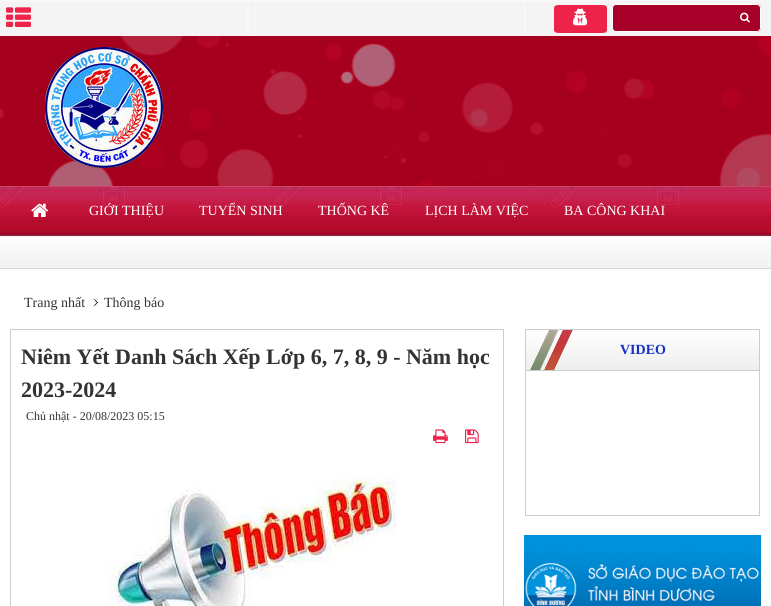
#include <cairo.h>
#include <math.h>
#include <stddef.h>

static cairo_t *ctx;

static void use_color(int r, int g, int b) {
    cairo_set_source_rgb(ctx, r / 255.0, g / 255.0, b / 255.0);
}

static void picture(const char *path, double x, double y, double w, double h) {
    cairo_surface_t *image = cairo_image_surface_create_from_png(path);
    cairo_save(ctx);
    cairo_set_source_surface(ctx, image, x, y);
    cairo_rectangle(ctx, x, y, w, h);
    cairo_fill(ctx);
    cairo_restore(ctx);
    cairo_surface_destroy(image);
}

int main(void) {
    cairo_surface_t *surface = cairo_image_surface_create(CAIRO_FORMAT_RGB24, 771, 606);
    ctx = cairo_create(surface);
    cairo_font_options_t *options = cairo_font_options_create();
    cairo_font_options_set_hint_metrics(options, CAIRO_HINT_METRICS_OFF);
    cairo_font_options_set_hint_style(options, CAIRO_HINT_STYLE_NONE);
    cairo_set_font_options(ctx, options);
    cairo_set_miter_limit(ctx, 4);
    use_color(255, 255, 255);
    cairo_paint(ctx);
    picture("img1.png", 0, 0, 771, 269);
    picture("img2.png", 6, 7, 25, 20);
    use_color(238, 35, 74);
    cairo_new_path(ctx);
    cairo_move_to(ctx, 559, 5);
    cairo_line_to(ctx, 602, 5);
    cairo_curve_to(ctx, 605, 5, 607, 6, 607, 8);
    cairo_line_to(ctx, 607, 30);
    cairo_curve_to(ctx, 607, 32, 605, 33, 602, 33);
    cairo_line_to(ctx, 559, 33);
    cairo_curve_to(ctx, 556, 33, 554, 32, 554, 30);
    cairo_line_to(ctx, 554, 8);
    cairo_curve_to(ctx, 554, 6, 556, 5, 559, 5);
    cairo_close_path(ctx);
    cairo_fill(ctx);
    picture("img3.png", 573, 8, 15, 18);
    use_color(166, 0, 40);
    cairo_new_path(ctx);
    cairo_move_to(ctx, 616, 4.5);
    cairo_line_to(ctx, 730.5, 4.5);
    cairo_line_to(ctx, 730.5, 31.5);
    cairo_line_to(ctx, 616, 31.5);
    cairo_curve_to(ctx, 614, 31.5, 612.5, 30, 612.5, 28);
    cairo_line_to(ctx, 612.5, 8);
    cairo_curve_to(ctx, 612.5, 6, 614, 4.5, 616, 4.5);
    cairo_close_path(ctx);
    cairo_fill_preserve(ctx);
    use_color(255, 255, 255);
    cairo_set_line_width(ctx, 1);
    cairo_stroke(ctx);
    use_color(166, 0, 40);
    cairo_new_path(ctx);
    cairo_move_to(ctx, 730, 4);
    cairo_line_to(ctx, 757, 4);
    cairo_curve_to(ctx, 759, 4, 761, 6, 761, 8);
    cairo_line_to(ctx, 761, 28);
    cairo_curve_to(ctx, 761, 30, 759, 32, 757, 32);
    cairo_line_to(ctx, 730, 32);
    cairo_close_path(ctx);
    cairo_fill(ctx);
    use_color(255, 255, 255);
    cairo_set_fill_rule(ctx, CAIRO_FILL_RULE_EVEN_ODD);
    cairo_new_path(ctx);
    cairo_move_to(ctx, 730, 4);
    cairo_line_to(ctx, 757, 4);
    cairo_curve_to(ctx, 759, 4, 761, 6, 761, 8);
    cairo_line_to(ctx, 761, 28);
    cairo_curve_to(ctx, 761, 30, 759, 32, 757, 32);
    cairo_line_to(ctx, 730, 32);
    cairo_close_path(ctx);
    cairo_move_to(ctx, 730, 5);
    cairo_line_to(ctx, 757, 5);
    cairo_curve_to(ctx, 758.5, 5, 760, 6.5, 760, 8);
    cairo_line_to(ctx, 760, 28);
    cairo_curve_to(ctx, 760, 29.5, 758.5, 31, 757, 31);
    cairo_line_to(ctx, 730, 31);
    cairo_close_path(ctx);
    cairo_fill(ctx);
    picture("img4.png", 740, 12, 10, 11);
    picture("img5.png", 45, 47, 118, 121);
    picture("img6.png", 31, 203, 17, 14);
    cairo_select_font_face(ctx, "Liberation Serif", CAIRO_FONT_SLANT_NORMAL, CAIRO_FONT_WEIGHT_NORMAL);
    cairo_set_font_size(ctx, 14);
    cairo_move_to(ctx, 89, 215);
    cairo_show_text(ctx, "GIỚI THIỆU");
    cairo_move_to(ctx, 199, 215);
    cairo_show_text(ctx, "TUYỂN SINH");
    cairo_move_to(ctx, 318, 215);
    cairo_show_text(ctx, "THỐNG KÊ");
    cairo_move_to(ctx, 425, 215);
    cairo_show_text(ctx, "LỊCH LÀM VIỆC");
    cairo_move_to(ctx, 564, 215);
    cairo_show_text(ctx, "BA CÔNG KHAI");
    use_color(51, 51, 51);
    cairo_move_to(ctx, 24, 307);
    cairo_show_text(ctx, "Trang nhất");
    use_color(0, 0, 0);
    cairo_set_fill_rule(ctx, CAIRO_FILL_RULE_WINDING);
    cairo_new_path(ctx);
    cairo_move_to(ctx, 94, 299.5);
    cairo_line_to(ctx, 94.5, 299);
    cairo_line_to(ctx, 98, 302.5);
    cairo_line_to(ctx, 97.5, 303);
    cairo_close_path(ctx);
    cairo_fill(ctx);
    cairo_new_path(ctx);
    cairo_move_to(ctx, 94, 305.5);
    cairo_line_to(ctx, 97.5, 302);
    cairo_line_to(ctx, 98, 302.5);
    cairo_line_to(ctx, 94.5, 306);
    cairo_close_path(ctx);
    cairo_fill(ctx);
    use_color(51, 51, 51);
    cairo_move_to(ctx, 104, 307);
    cairo_show_text(ctx, "Thông báo");
    cairo_rectangle(ctx, 10.5, 329.5, 493, 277);
    use_color(204, 204, 204);
    cairo_stroke(ctx);
    cairo_select_font_face(ctx, "Liberation Serif", CAIRO_FONT_SLANT_NORMAL, CAIRO_FONT_WEIGHT_BOLD);
    cairo_set_font_size(ctx, 22);
    use_color(51, 51, 51);
    cairo_move_to(ctx, 21, 364);
    cairo_show_text(ctx, "Niêm Yết Danh Sách Xếp Lớp 6, 7, 8, 9 - Năm học");
    cairo_move_to(ctx, 21, 397);
    cairo_show_text(ctx, "2023-2024");
    cairo_select_font_face(ctx, "Liberation Serif", CAIRO_FONT_SLANT_NORMAL, CAIRO_FONT_WEIGHT_NORMAL);
    cairo_set_font_size(ctx, 12);
    cairo_move_to(ctx, 26, 420);
    cairo_show_text(ctx, "Chủ nhật - 20/08/2023 05:15");
    picture("img7.png", 433, 429, 15, 15);
    picture("img8.png", 465, 429, 14, 15);
    picture("img9.png", 108, 477, 288, 129);
    picture("img10.png", 526, 330, 233, 40);
    cairo_rectangle(ctx, 525.5, 329.5, 234, 41);
    use_color(204, 204, 204);
    cairo_stroke(ctx);
    cairo_select_font_face(ctx, "Liberation Serif", CAIRO_FONT_SLANT_NORMAL, CAIRO_FONT_WEIGHT_BOLD);
    cairo_set_font_size(ctx, 14);
    use_color(18, 48, 198);
    cairo_move_to(ctx, 620, 354);
    cairo_show_text(ctx, "VIDEO");
    use_color(204, 204, 204);
    cairo_rectangle(ctx, 759, 371, 1, 145);
    cairo_fill(ctx);
    cairo_rectangle(ctx, 525, 515, 235, 1);
    cairo_fill(ctx);
    cairo_rectangle(ctx, 525, 371, 1, 145);
    cairo_fill(ctx);
    picture("img11.png", 524, 535, 237, 71);
    cairo_surface_write_to_png(surface, "result.png");
    cairo_font_options_destroy(options);
    cairo_destroy(ctx);
    cairo_surface_destroy(surface);
    return 0;
}
